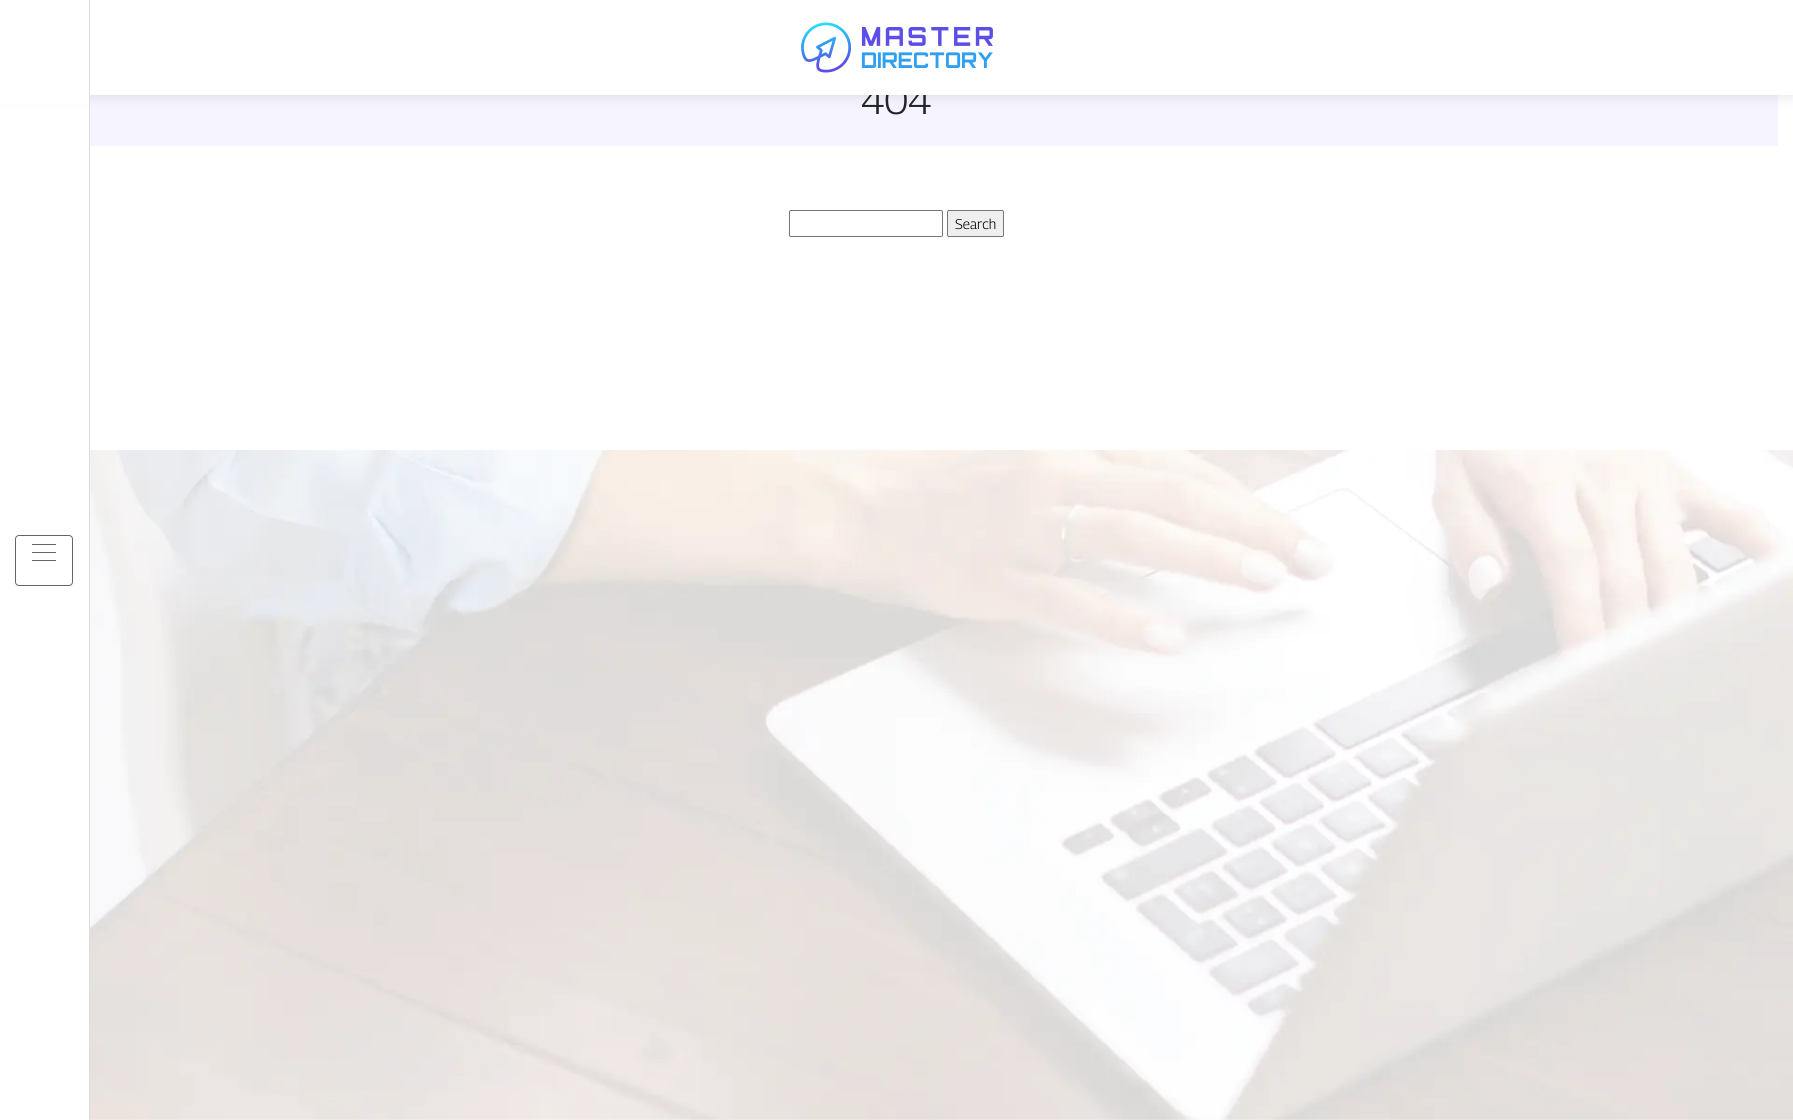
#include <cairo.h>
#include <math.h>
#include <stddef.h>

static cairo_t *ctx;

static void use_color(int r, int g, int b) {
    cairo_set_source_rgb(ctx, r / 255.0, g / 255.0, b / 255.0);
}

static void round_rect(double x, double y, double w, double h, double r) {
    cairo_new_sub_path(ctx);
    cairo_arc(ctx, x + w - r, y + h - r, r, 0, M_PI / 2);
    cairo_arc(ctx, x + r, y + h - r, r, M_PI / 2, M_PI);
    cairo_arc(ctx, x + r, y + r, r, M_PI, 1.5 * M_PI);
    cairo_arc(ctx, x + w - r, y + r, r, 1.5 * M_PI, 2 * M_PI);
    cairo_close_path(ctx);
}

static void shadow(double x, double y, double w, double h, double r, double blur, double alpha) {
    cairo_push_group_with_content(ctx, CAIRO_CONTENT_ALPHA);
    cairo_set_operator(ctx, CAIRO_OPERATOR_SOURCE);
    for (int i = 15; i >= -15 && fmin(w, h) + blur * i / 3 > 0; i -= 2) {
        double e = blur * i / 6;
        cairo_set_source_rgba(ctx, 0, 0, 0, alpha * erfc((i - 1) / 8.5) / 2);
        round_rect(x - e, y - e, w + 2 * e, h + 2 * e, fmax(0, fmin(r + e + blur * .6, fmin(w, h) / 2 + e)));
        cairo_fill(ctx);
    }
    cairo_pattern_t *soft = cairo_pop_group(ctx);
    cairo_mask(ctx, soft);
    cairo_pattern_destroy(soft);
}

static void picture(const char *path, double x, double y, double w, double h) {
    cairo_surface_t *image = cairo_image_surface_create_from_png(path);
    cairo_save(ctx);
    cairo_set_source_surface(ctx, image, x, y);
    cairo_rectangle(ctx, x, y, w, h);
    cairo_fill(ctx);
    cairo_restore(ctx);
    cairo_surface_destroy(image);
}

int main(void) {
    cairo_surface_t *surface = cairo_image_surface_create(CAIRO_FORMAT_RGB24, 1793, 1120);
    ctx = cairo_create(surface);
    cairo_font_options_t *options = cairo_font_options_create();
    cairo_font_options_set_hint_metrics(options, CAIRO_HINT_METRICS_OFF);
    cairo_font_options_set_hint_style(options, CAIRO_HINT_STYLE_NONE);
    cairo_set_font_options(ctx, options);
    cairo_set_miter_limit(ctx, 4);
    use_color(255, 255, 255);
    cairo_paint(ctx);
    picture("img1.png", 90, 450, 1703, 670);
    use_color(245, 244, 255);
    cairo_rectangle(ctx, 90, 95, 1688, 51);
    cairo_fill(ctx);
    use_color(0, 0, 0);
    shadow(0, 2, 1793, 95, 0, 6.5, 0.1);
    cairo_select_font_face(ctx, "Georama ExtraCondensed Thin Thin", CAIRO_FONT_SLANT_NORMAL, CAIRO_FONT_WEIGHT_NORMAL);
    cairo_set_font_size(ctx, 40);
    use_color(33, 37, 41);
    cairo_move_to(ctx, 861, 114);
    cairo_show_text(ctx, "404");
    use_color(255, 255, 255);
    cairo_rectangle(ctx, 90, 0, 1703, 95);
    cairo_fill(ctx);
    cairo_rectangle(ctx, 0, 0, 89, 105);
    cairo_fill(ctx);
    use_color(221, 221, 221);
    cairo_rectangle(ctx, 89, 0, 1, 1120);
    cairo_fill(ctx);
    round_rect(15.5, 535.5, 57, 50, 3.5);
    use_color(102, 102, 102);
    cairo_set_line_width(ctx, 1);
    cairo_stroke(ctx);
    cairo_rectangle(ctx, 32, 544, 24, 1);
    cairo_fill(ctx);
    cairo_rectangle(ctx, 32, 552, 24, 1);
    cairo_fill(ctx);
    cairo_rectangle(ctx, 32, 560, 24, 1);
    cairo_fill(ctx);
    picture("img2.png", 801, 22, 192, 51);
    round_rect(789.5, 210.5, 153, 26, 1.5);
    use_color(118, 118, 118);
    cairo_stroke(ctx);
    use_color(239, 239, 239);
    round_rect(947.5, 210.5, 56, 26, 1.5);
    cairo_fill_preserve(ctx);
    use_color(118, 118, 118);
    cairo_stroke(ctx);
    cairo_set_font_size(ctx, 14);
    use_color(0, 0, 0);
    cairo_move_to(ctx, 955, 229);
    cairo_show_text(ctx, "Search");
    cairo_surface_write_to_png(surface, "result.png");
    cairo_font_options_destroy(options);
    cairo_destroy(ctx);
    cairo_surface_destroy(surface);
    return 0;
}
